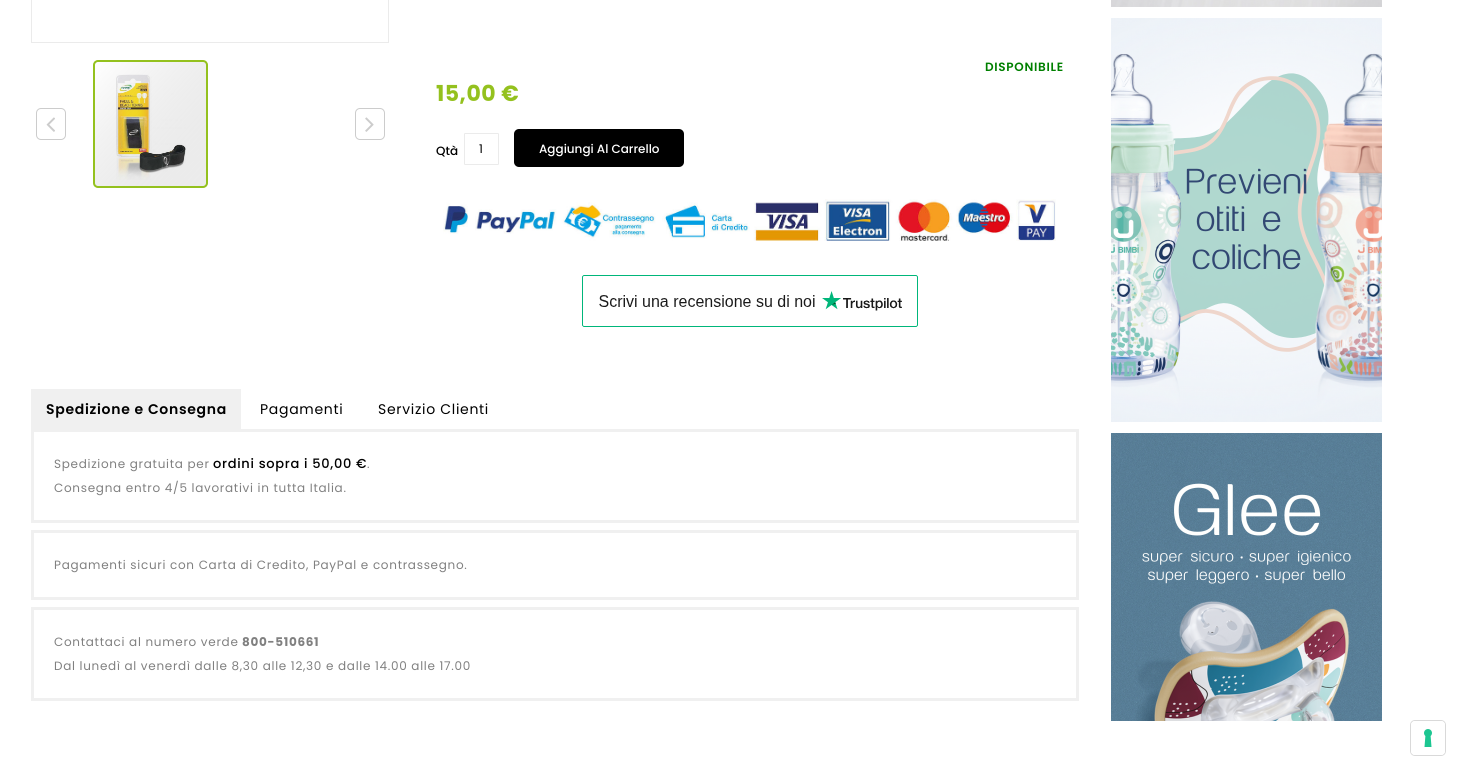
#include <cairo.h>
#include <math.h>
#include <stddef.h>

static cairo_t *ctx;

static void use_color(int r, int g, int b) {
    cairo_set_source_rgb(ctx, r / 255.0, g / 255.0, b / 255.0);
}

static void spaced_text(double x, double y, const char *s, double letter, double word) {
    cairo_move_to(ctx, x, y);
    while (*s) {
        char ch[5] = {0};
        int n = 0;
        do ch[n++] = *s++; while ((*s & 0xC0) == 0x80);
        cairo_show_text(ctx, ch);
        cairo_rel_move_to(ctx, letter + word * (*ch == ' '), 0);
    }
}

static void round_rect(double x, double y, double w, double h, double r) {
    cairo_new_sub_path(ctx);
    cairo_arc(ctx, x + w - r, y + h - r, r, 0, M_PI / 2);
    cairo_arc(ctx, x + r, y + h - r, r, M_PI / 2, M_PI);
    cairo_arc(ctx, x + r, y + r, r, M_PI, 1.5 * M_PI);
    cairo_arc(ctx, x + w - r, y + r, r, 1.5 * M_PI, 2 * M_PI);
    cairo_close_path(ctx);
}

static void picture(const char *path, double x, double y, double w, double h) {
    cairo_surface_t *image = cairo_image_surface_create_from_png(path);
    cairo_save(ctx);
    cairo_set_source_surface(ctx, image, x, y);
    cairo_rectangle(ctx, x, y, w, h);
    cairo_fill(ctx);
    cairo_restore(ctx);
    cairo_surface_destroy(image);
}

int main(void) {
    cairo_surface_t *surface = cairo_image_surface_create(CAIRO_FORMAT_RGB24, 1461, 771);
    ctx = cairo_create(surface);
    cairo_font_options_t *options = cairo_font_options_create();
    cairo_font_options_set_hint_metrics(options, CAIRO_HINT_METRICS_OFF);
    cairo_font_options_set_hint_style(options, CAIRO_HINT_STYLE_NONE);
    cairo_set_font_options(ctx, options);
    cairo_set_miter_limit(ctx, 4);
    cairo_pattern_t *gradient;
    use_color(255, 255, 255);
    cairo_paint(ctx);
    cairo_rectangle(ctx, 31.5, -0.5, 357, 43);
    use_color(235, 235, 235);
    cairo_set_line_width(ctx, 1);
    cairo_stroke(ctx);
    round_rect(36.5, 108.5, 29, 31, 4.5);
    use_color(204, 204, 204);
    cairo_stroke(ctx);
    picture("img1.png", 46, 117, 9, 15);
    cairo_save(ctx);
    round_rect(93, 60, 115, 128, 5);
    cairo_clip(ctx);
    gradient = cairo_pattern_create_linear(-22, -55, 101, 55);
    cairo_pattern_add_color_stop_rgba(gradient, 0, 1, 1, 1, 1);
    cairo_pattern_add_color_stop_rgba(gradient, 1, 0.925, 0.925, 0.925, 1);
    cairo_set_source(ctx, gradient);
    cairo_pattern_destroy(gradient);
    cairo_rectangle(ctx, 93, 61, 2, 1);
    cairo_fill(ctx);
    gradient = cairo_pattern_create_linear(200, -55, 323, 55);
    cairo_pattern_add_color_stop_rgba(gradient, 0, 1, 1, 1, 1);
    cairo_pattern_add_color_stop_rgba(gradient, 1, 0.925, 0.925, 0.925, 1);
    cairo_set_source(ctx, gradient);
    cairo_pattern_destroy(gradient);
    cairo_rectangle(ctx, 206, 61, 2, 1);
    cairo_fill(ctx);
    cairo_restore(ctx);
    picture("img2.png", 116, 74, 70, 106);
    gradient = cairo_pattern_create_linear(89, 69, 212, 179);
    cairo_pattern_add_color_stop_rgba(gradient, 0, 1, 1, 1, 0.25);
    cairo_pattern_add_color_stop_rgba(gradient, 1, 0.251, 0.251, 0.251, 0.1);
    cairo_set_source(ctx, gradient);
    cairo_pattern_destroy(gradient);
    cairo_rectangle(ctx, 95, 62, 111, 124);
    cairo_fill(ctx);
    cairo_save(ctx);
    round_rect(93, 60, 115, 128, 5);
    cairo_clip(ctx);
    gradient = cairo_pattern_create_linear(-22, 193, 101, 303);
    cairo_pattern_add_color_stop_rgba(gradient, 0, 1, 1, 1, 1);
    cairo_pattern_add_color_stop_rgba(gradient, 1, 0.925, 0.925, 0.925, 1);
    cairo_set_source(ctx, gradient);
    cairo_pattern_destroy(gradient);
    cairo_rectangle(ctx, 93, 186, 2, 1);
    cairo_fill(ctx);
    cairo_restore(ctx);
    round_rect(94, 61, 113, 126, 4);
    use_color(148, 193, 30);
    cairo_set_line_width(ctx, 2);
    cairo_stroke(ctx);
    round_rect(355.5, 108.5, 29, 31, 4.5);
    use_color(204, 204, 204);
    cairo_set_line_width(ctx, 1);
    cairo_stroke(ctx);
    picture("img3.png", 365, 117, 9, 15);
    cairo_select_font_face(ctx, "Poppins SemiBold", CAIRO_FONT_SLANT_NORMAL, CAIRO_FONT_WEIGHT_NORMAL);
    cairo_set_font_size(ctx, 12);
    use_color(0, 128, 0);
    spaced_text(985, 71, "DISPONIBILE", 0.7, 0);
    cairo_select_font_face(ctx, "Poppins", CAIRO_FONT_SLANT_NORMAL, CAIRO_FONT_WEIGHT_BOLD);
    cairo_set_font_size(ctx, 22);
    use_color(148, 193, 30);
    spaced_text(436, 101, "15,00 €", 0.5, 0);
    cairo_select_font_face(ctx, "Poppins Medium", CAIRO_FONT_SLANT_NORMAL, CAIRO_FONT_WEIGHT_NORMAL);
    cairo_set_font_size(ctx, 12);
    use_color(0, 0, 0);
    cairo_move_to(ctx, 436, 155);
    cairo_show_text(ctx, "Qtà");
    round_rect(464.5, 133.5, 34, 31, 0.5);
    use_color(235, 235, 235);
    cairo_stroke(ctx);
    cairo_select_font_face(ctx, "Poppins", CAIRO_FONT_SLANT_NORMAL, CAIRO_FONT_WEIGHT_NORMAL);
    use_color(0, 0, 0);
    cairo_move_to(ctx, 479, 153);
    cairo_show_text(ctx, "1");
    round_rect(514, 129, 170, 38, 5);
    cairo_fill(ctx);
    cairo_select_font_face(ctx, "Poppins Medium", CAIRO_FONT_SLANT_NORMAL, CAIRO_FONT_WEIGHT_NORMAL);
    use_color(255, 255, 255);
    cairo_move_to(ctx, 539, 153);
    cairo_show_text(ctx, "Aggiungi Al Carrello");
    picture("img4.png", 443, 199, 613, 42);
    picture("img5.png", 582, 275, 336, 52);
    picture("img6.png", 1111, 0, 271, 7);
    picture("img7.png", 1111, 18, 271, 404);
    picture("img8.png", 1111, 433, 271, 288);
    use_color(240, 240, 240);
    cairo_rectangle(ctx, 31, 389, 210, 40);
    cairo_fill(ctx);
    cairo_select_font_face(ctx, "Poppins SemiBold", CAIRO_FONT_SLANT_NORMAL, CAIRO_FONT_WEIGHT_NORMAL);
    cairo_set_font_size(ctx, 14);
    use_color(0, 0, 0);
    spaced_text(46, 414, "Spedizione e Consegna", 0.7, 0);
    cairo_select_font_face(ctx, "Poppins", CAIRO_FONT_SLANT_NORMAL, CAIRO_FONT_WEIGHT_NORMAL);
    spaced_text(260, 414, "Pagamenti", 0.7, 0);
    spaced_text(378, 414, "Servizio Clienti", 0.7, 0);
    cairo_rectangle(ctx, 32.5, 430.5, 1045, 91);
    use_color(240, 240, 240);
    cairo_set_line_width(ctx, 3);
    cairo_stroke(ctx);
    cairo_set_font_size(ctx, 12);
    use_color(128, 128, 128);
    spaced_text(54, 468, "Spedizione gratuita per", 0.7, 0);
    cairo_select_font_face(ctx, "Poppins Medium", CAIRO_FONT_SLANT_NORMAL, CAIRO_FONT_WEIGHT_NORMAL);
    cairo_set_font_size(ctx, 13);
    use_color(0, 0, 0);
    spaced_text(213, 468, "ordini sopra i 50,00 €", 0.7, 0);
    cairo_select_font_face(ctx, "Poppins", CAIRO_FONT_SLANT_NORMAL, CAIRO_FONT_WEIGHT_NORMAL);
    cairo_set_font_size(ctx, 12);
    use_color(128, 128, 128);
    spaced_text(367, 468, ".", 0.7, 0);
    spaced_text(54, 492, "Consegna entro 4/5 lavorativi in tutta Italia.", 0.7, 0);
    cairo_rectangle(ctx, 32.5, 531.5, 1045, 67);
    use_color(240, 240, 240);
    cairo_stroke(ctx);
    use_color(128, 128, 128);
    spaced_text(54, 569, "Pagamenti sicuri con Carta di Credito, PayPal e contrassegno.", 0.7, 0);
    cairo_rectangle(ctx, 32.5, 608.5, 1045, 91);
    use_color(240, 240, 240);
    cairo_stroke(ctx);
    use_color(128, 128, 128);
    spaced_text(54, 646, "Contattaci al numero verde", 0.7, 0);
    cairo_select_font_face(ctx, "Poppins", CAIRO_FONT_SLANT_NORMAL, CAIRO_FONT_WEIGHT_BOLD);
    spaced_text(242, 646, "800-510661", 0.7, 0);
    cairo_select_font_face(ctx, "Poppins", CAIRO_FONT_SLANT_NORMAL, CAIRO_FONT_WEIGHT_NORMAL);
    spaced_text(54, 670, "Dal lunedì al venerdì dalle 8,30 alle 12,30 e dalle 14.00 alle 17.00", 0.7, 0);
    round_rect(1410.5, 720.5, 35, 35, 4.5);
    use_color(217, 217, 217);
    cairo_set_line_width(ctx, 1);
    cairo_stroke(ctx);
    use_color(255, 255, 255);
    round_rect(1411, 721, 34, 34, 4);
    cairo_fill(ctx);
    picture("img9.png", 1424, 729, 8, 18);
    cairo_surface_write_to_png(surface, "result.png");
    cairo_font_options_destroy(options);
    cairo_destroy(ctx);
    cairo_surface_destroy(surface);
    return 0;
}
